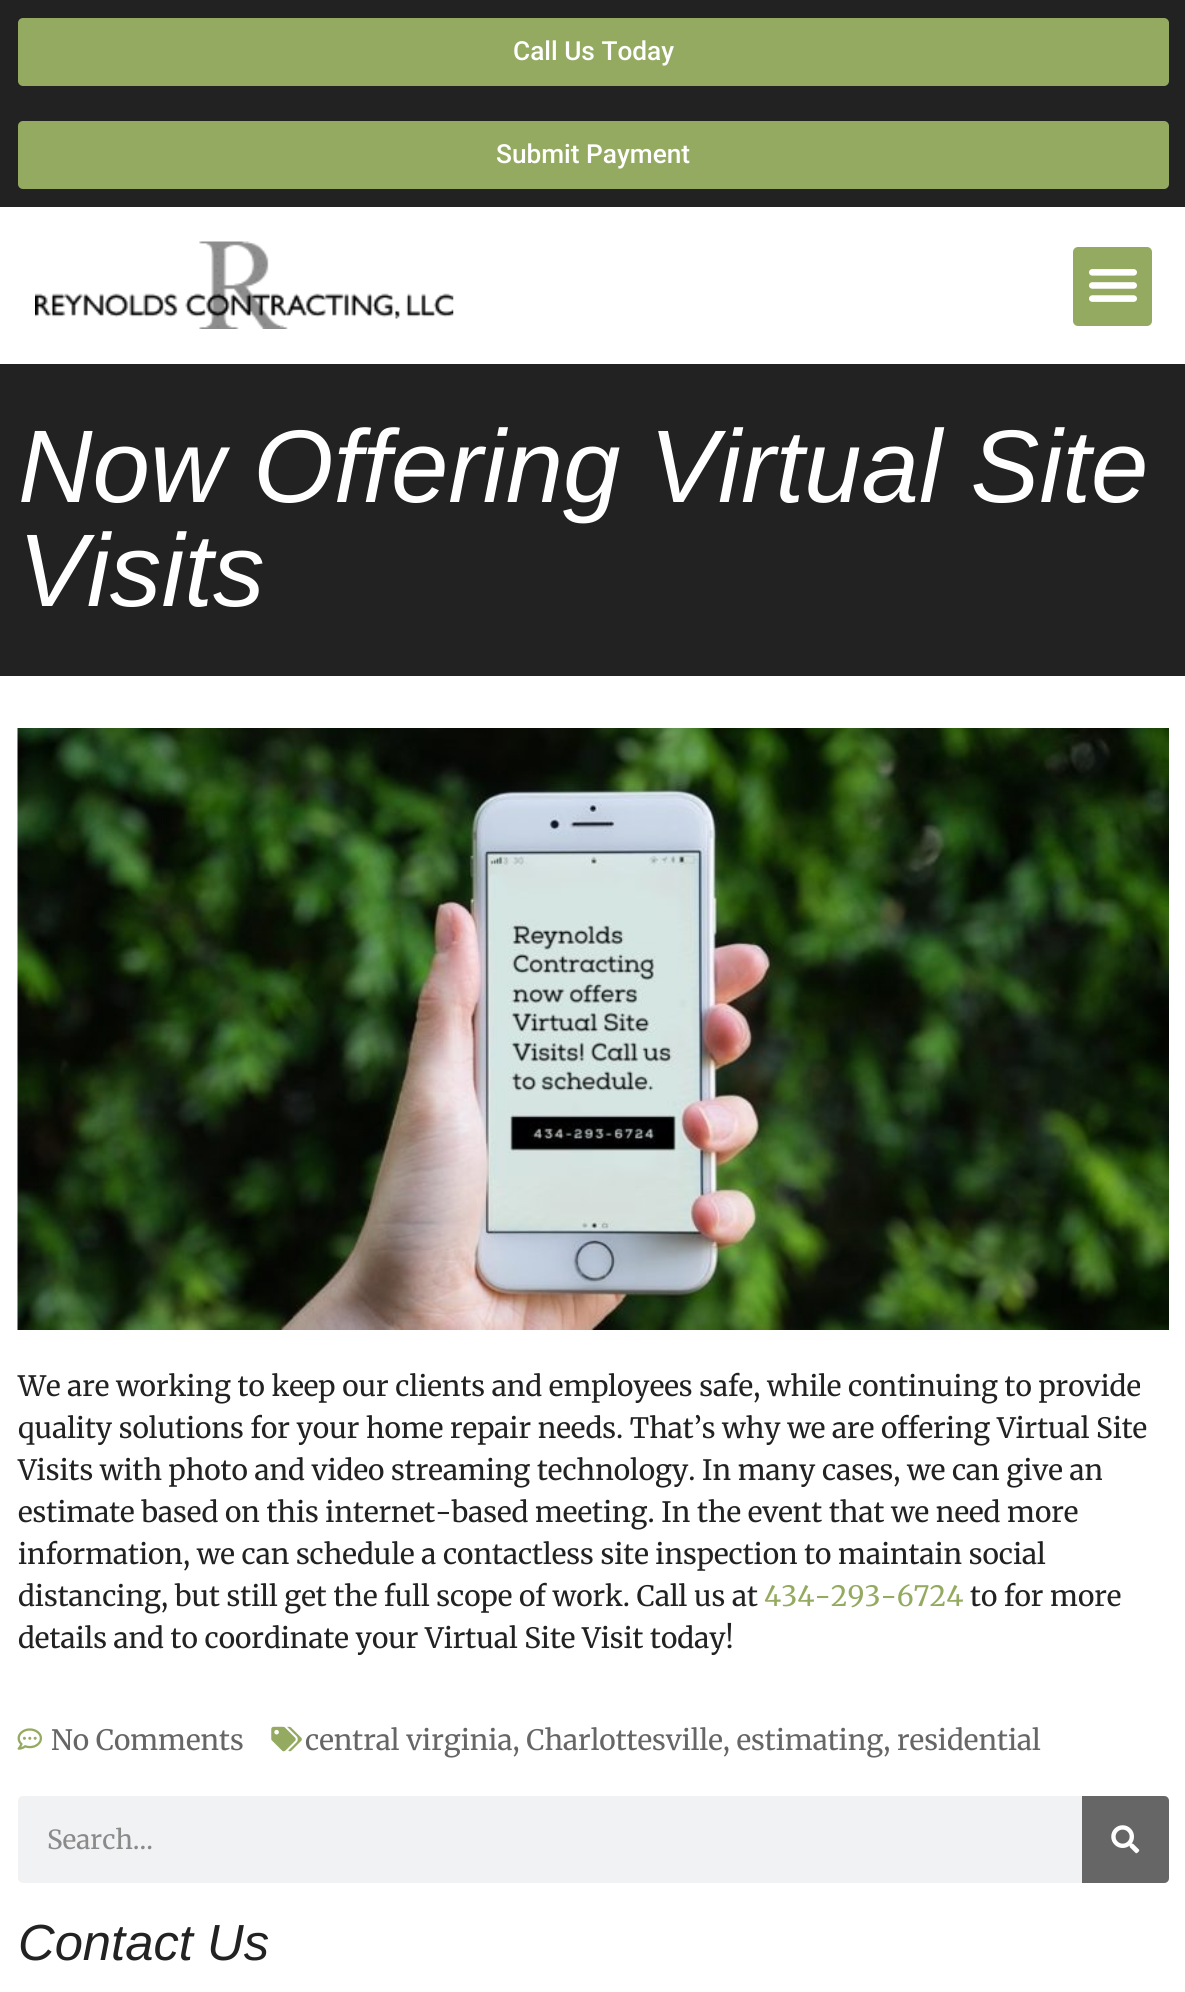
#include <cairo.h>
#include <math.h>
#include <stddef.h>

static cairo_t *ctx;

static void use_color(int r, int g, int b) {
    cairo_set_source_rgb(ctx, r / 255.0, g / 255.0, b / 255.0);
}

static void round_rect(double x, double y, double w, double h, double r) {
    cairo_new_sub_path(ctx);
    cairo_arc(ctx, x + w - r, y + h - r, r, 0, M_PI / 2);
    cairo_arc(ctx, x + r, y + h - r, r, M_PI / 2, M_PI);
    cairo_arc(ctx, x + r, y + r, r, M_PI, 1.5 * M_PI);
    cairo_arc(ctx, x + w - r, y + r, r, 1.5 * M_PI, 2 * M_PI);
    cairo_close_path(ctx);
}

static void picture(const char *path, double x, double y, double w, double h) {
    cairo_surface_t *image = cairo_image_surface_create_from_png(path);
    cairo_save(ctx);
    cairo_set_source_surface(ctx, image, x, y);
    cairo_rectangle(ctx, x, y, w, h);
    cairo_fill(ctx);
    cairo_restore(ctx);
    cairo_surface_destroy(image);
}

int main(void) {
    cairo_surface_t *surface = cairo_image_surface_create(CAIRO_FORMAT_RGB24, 1185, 1992);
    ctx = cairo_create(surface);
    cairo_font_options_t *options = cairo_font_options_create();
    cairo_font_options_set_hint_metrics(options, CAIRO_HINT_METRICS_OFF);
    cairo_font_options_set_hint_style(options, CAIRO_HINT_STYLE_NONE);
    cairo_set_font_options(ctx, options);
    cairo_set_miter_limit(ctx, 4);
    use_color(255, 255, 255);
    cairo_paint(ctx);
    use_color(34, 34, 34);
    cairo_rectangle(ctx, 0, 0, 1185, 207);
    cairo_fill(ctx);
    use_color(149, 170, 97);
    round_rect(18, 18, 1151, 68, 5);
    cairo_fill(ctx);
    cairo_select_font_face(ctx, "Roboto Medium", CAIRO_FONT_SLANT_NORMAL, CAIRO_FONT_WEIGHT_NORMAL);
    cairo_set_font_size(ctx, 26.25);
    use_color(255, 255, 255);
    cairo_move_to(ctx, 513, 60);
    cairo_show_text(ctx, "Call Us Today");
    use_color(149, 170, 97);
    round_rect(18, 121, 1151, 68, 5);
    cairo_fill(ctx);
    use_color(255, 255, 255);
    cairo_move_to(ctx, 496, 163);
    cairo_show_text(ctx, "Submit Payment");
    picture("img1.png", 35, 241, 419, 88);
    use_color(149, 170, 97);
    round_rect(1073, 247, 79, 79, 5);
    cairo_fill(ctx);
    picture("img2.png", 1089, 269, 48, 33);
    use_color(34, 34, 34);
    cairo_rectangle(ctx, 0, 364, 1185, 312);
    cairo_fill(ctx);
    cairo_select_font_face(ctx, "Liberation Sans", CAIRO_FONT_SLANT_ITALIC, CAIRO_FONT_WEIGHT_NORMAL);
    cairo_set_font_size(ctx, 103.25);
    use_color(255, 255, 255);
    cairo_move_to(ctx, 18, 502);
    cairo_show_text(ctx, "Now Offering Virtual Site");
    cairo_move_to(ctx, 18, 606);
    cairo_show_text(ctx, "Visits");
    picture("img3.png", 17, 728, 1152, 602);
    cairo_select_font_face(ctx, "Merriweather", CAIRO_FONT_SLANT_NORMAL, CAIRO_FONT_WEIGHT_NORMAL);
    cairo_set_font_size(ctx, 28);
    use_color(34, 34, 34);
    cairo_move_to(ctx, 18, 1396);
    cairo_show_text(ctx, "We are working to keep our clients and employees safe, while continuing to provide");
    cairo_move_to(ctx, 18, 1438);
    cairo_show_text(ctx, "quality solutions for your home repair needs. That’s why we are offering Virtual Site");
    cairo_move_to(ctx, 18, 1480);
    cairo_show_text(ctx, "Visits with photo and video streaming technology. In many cases, we can give an");
    cairo_move_to(ctx, 18, 1522);
    cairo_show_text(ctx, "estimate based on this internet-based meeting. In the event that we need more");
    cairo_move_to(ctx, 18, 1564);
    cairo_show_text(ctx, "information, we can schedule a contactless site inspection to maintain social");
    cairo_move_to(ctx, 18, 1606);
    cairo_show_text(ctx, "distancing, but still get the full scope of work. Call us at");
    use_color(149, 170, 97);
    cairo_move_to(ctx, 764, 1606);
    cairo_show_text(ctx, "434-293-6724");
    use_color(34, 34, 34);
    cairo_move_to(ctx, 970, 1606);
    cairo_show_text(ctx, "to for more");
    cairo_move_to(ctx, 18, 1648);
    cairo_show_text(ctx, "details and to coordinate your Virtual Site Visit today!");
    picture("img4.png", 17, 1728, 25, 22);
    use_color(102, 102, 102);
    cairo_move_to(ctx, 51, 1750);
    cairo_show_text(ctx, "No Comments");
    picture("img5.png", 271, 1726, 31, 26);
    cairo_move_to(ctx, 305, 1750);
    cairo_show_text(ctx, "central virginia, Charlottesville, estimating, residential");
    use_color(241, 242, 243);
    round_rect(18, 1796, 1151, 87, 5);
    cairo_fill(ctx);
    cairo_set_font_size(ctx, 26.25);
    use_color(138, 138, 139);
    cairo_move_to(ctx, 47, 1849);
    cairo_show_text(ctx, "Search...");
    use_color(102, 102, 102);
    cairo_new_path(ctx);
    cairo_move_to(ctx, 1082, 1796);
    cairo_line_to(ctx, 1164, 1796);
    cairo_curve_to(ctx, 1167, 1796, 1169, 1798, 1169, 1801);
    cairo_line_to(ctx, 1169, 1878);
    cairo_curve_to(ctx, 1169, 1881, 1167, 1883, 1164, 1883);
    cairo_line_to(ctx, 1082, 1883);
    cairo_close_path(ctx);
    cairo_fill(ctx);
    picture("img6.png", 1111, 1825, 29, 29);
    cairo_select_font_face(ctx, "Liberation Sans", CAIRO_FONT_SLANT_ITALIC, CAIRO_FONT_WEIGHT_NORMAL);
    cairo_set_font_size(ctx, 50.75);
    use_color(34, 34, 34);
    cairo_move_to(ctx, 18, 1960);
    cairo_show_text(ctx, "Contact Us");
    cairo_surface_write_to_png(surface, "result.png");
    cairo_font_options_destroy(options);
    cairo_destroy(ctx);
    cairo_surface_destroy(surface);
    return 0;
}
